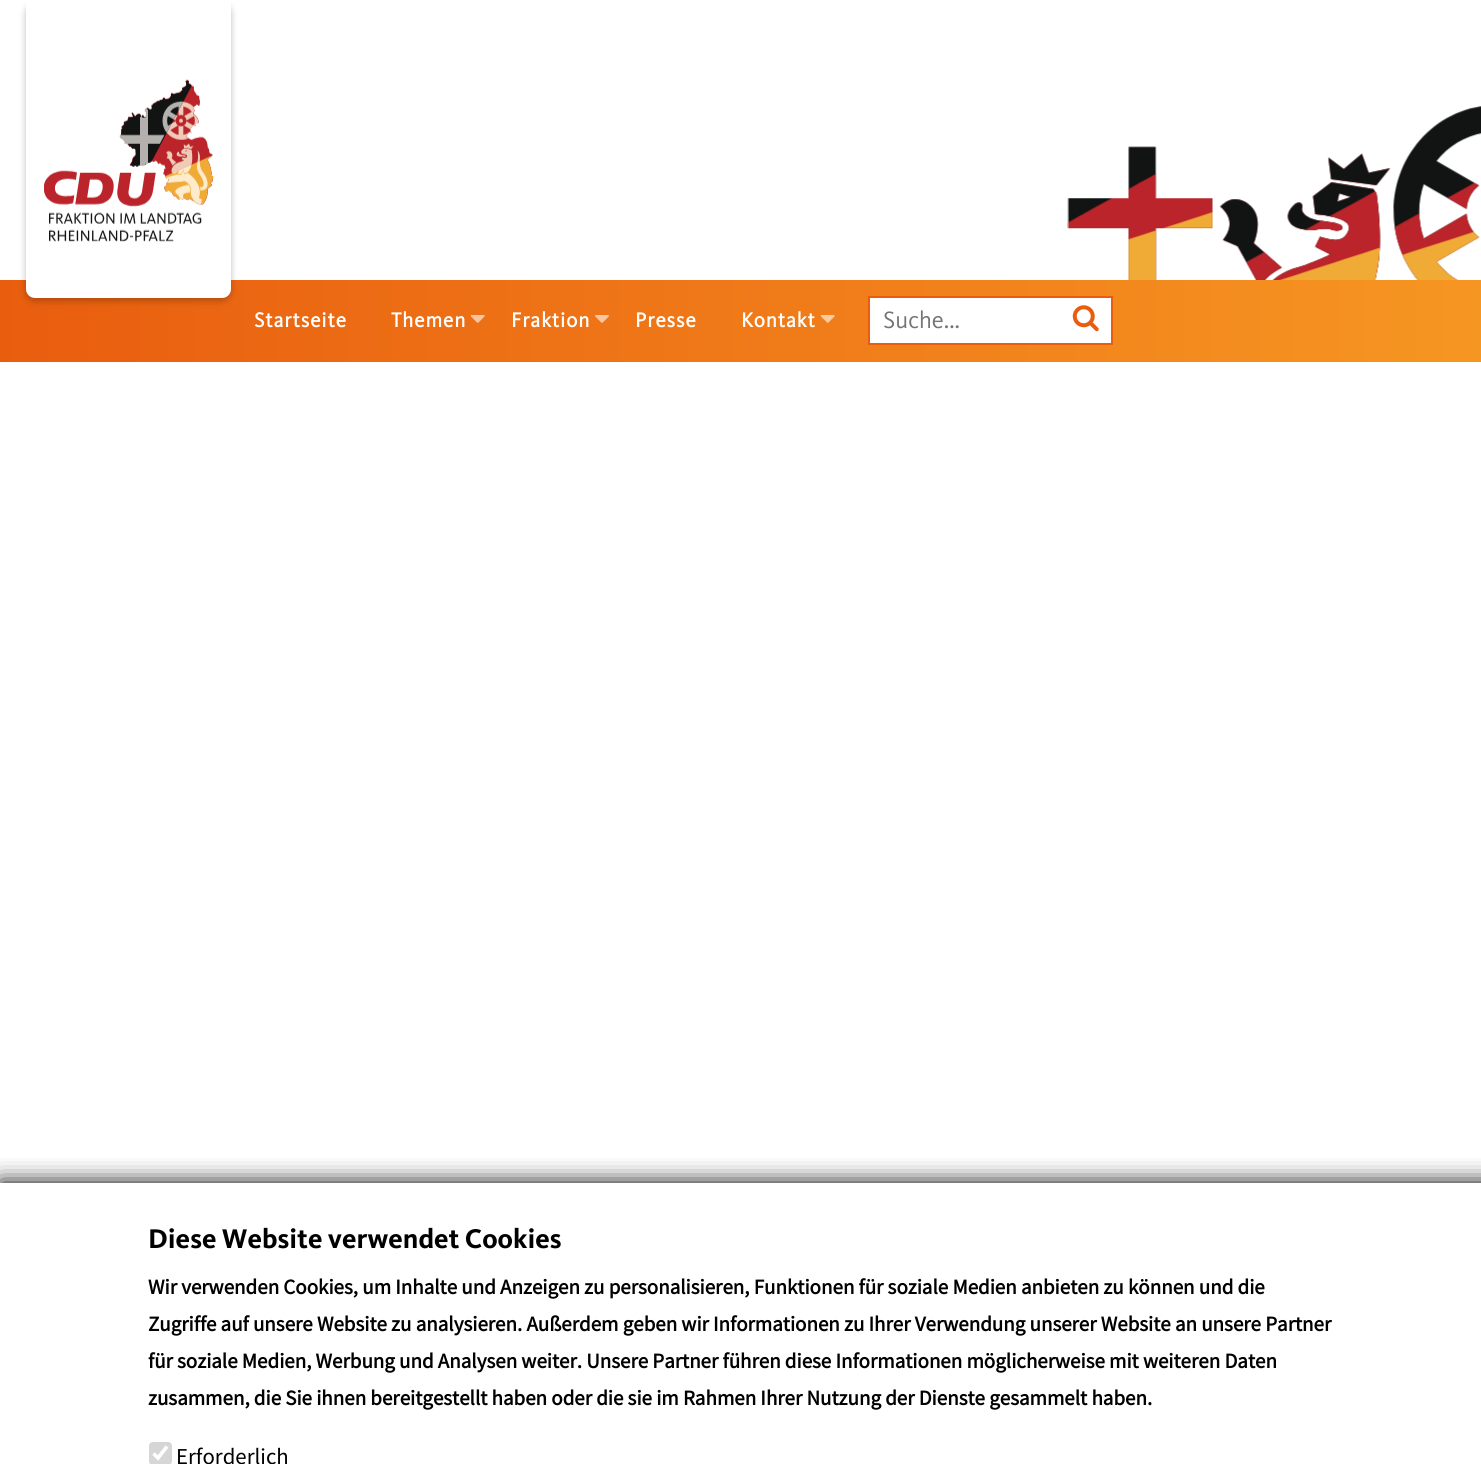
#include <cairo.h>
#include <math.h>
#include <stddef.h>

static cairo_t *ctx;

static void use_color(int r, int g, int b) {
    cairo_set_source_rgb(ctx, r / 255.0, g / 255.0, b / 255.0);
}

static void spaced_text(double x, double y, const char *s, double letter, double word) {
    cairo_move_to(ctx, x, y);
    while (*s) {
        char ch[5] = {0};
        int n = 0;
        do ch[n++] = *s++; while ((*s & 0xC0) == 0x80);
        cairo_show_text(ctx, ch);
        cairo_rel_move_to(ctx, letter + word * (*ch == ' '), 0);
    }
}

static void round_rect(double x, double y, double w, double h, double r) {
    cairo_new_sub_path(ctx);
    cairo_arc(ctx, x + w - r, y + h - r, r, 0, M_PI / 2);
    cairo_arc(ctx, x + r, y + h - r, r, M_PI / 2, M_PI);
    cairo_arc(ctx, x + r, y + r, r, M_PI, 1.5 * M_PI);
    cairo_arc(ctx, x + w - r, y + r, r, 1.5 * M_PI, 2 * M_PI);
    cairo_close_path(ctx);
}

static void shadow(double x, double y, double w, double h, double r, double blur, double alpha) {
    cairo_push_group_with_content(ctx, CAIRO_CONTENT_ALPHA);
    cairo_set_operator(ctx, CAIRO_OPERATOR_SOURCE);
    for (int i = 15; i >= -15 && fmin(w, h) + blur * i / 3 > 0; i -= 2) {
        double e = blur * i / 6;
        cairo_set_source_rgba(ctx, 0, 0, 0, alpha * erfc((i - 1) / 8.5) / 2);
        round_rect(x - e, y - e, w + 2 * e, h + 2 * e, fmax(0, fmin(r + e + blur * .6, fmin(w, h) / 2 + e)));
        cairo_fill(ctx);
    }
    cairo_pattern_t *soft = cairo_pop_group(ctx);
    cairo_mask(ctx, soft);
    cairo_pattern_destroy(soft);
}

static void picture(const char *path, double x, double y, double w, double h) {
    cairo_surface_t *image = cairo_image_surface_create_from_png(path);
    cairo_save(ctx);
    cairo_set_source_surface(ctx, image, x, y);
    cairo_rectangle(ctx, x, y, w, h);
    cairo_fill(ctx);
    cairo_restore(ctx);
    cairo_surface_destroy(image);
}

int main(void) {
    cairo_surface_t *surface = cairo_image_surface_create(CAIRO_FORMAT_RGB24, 1481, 1464);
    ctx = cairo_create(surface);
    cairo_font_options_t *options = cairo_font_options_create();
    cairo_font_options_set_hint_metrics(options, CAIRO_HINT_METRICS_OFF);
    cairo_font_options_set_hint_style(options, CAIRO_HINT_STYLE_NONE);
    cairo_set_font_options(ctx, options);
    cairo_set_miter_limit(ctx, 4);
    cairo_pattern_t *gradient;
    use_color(255, 255, 255);
    cairo_paint(ctx);
    gradient = cairo_pattern_create_linear(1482, 321, 0, 321);
    cairo_pattern_add_color_stop_rgba(gradient, 0, 0.965, 0.588, 0.133, 1);
    cairo_pattern_add_color_stop_rgba(gradient, 1, 0.914, 0.365, 0.059, 1);
    cairo_set_source(ctx, gradient);
    cairo_pattern_destroy(gradient);
    cairo_rectangle(ctx, 0, 280, 1481, 82);
    cairo_fill(ctx);
    use_color(0, 0, 0);
    shadow(26, 4, 205, 297, 9, 3.5, 0.25);
    use_color(255, 255, 255);
    cairo_new_path(ctx);
    cairo_move_to(ctx, 26, 0);
    cairo_line_to(ctx, 231, 0);
    cairo_line_to(ctx, 231, 289);
    cairo_curve_to(ctx, 231, 294, 227, 298, 222, 298);
    cairo_line_to(ctx, 35, 298);
    cairo_curve_to(ctx, 30, 298, 26, 294, 26, 289);
    cairo_close_path(ctx);
    cairo_fill(ctx);
    picture("img1.png", 44, 79, 170, 163);
    picture("img2.png", 1067, 106, 414, 174);
    cairo_select_font_face(ctx, "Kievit", CAIRO_FONT_SLANT_NORMAL, CAIRO_FONT_WEIGHT_BOLD);
    cairo_set_font_size(ctx, 21);
    spaced_text(254, 327, "Startseite", 0.9, 0);
    spaced_text(391, 327, "Themen", 0.9, 0);
    picture("img3.png", 470, 315, 15, 8);
    spaced_text(511, 327, "Fraktion", 0.9, 0);
    picture("img4.png", 595, 315, 14, 8);
    spaced_text(635, 327, "Presse", 0.9, 0);
    spaced_text(741, 327, "Kontakt", 0.9, 0);
    picture("img5.png", 820, 315, 15, 8);
    cairo_rectangle(ctx, 869, 297, 243, 47);
    cairo_fill_preserve(ctx);
    use_color(233, 93, 15);
    cairo_stroke(ctx);
    cairo_select_font_face(ctx, "Kievit", CAIRO_FONT_SLANT_NORMAL, CAIRO_FONT_WEIGHT_NORMAL);
    cairo_set_font_size(ctx, 24.5);
    use_color(117, 117, 117);
    cairo_move_to(ctx, 883, 328);
    cairo_show_text(ctx, "Suche...");
    picture("img6.png", 1072, 305, 27, 27);
    cairo_save(ctx);
    cairo_rectangle(ctx, 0, 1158, 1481, 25);
    cairo_clip(ctx);
    use_color(0, 0, 0);
    shadow(0, 1183, 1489, 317, 0, 12, 1);
    cairo_restore(ctx);
    cairo_select_font_face(ctx, "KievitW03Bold", CAIRO_FONT_SLANT_NORMAL, CAIRO_FONT_WEIGHT_BOLD);
    cairo_set_font_size(ctx, 28);
    use_color(0, 0, 0);
    cairo_move_to(ctx, 148, 1248);
    cairo_show_text(ctx, "Diese Website verwendet Cookies");
    cairo_select_font_face(ctx, "Source Sans Pro", CAIRO_FONT_SLANT_NORMAL, CAIRO_FONT_WEIGHT_BOLD);
    cairo_set_font_size(ctx, 21);
    cairo_move_to(ctx, 148, 1294);
    cairo_show_text(ctx, "Wir verwenden Cookies, um Inhalte und Anzeigen zu personalisieren, Funktionen für soziale Medien anbieten zu können und die");
    cairo_move_to(ctx, 148, 1331);
    cairo_show_text(ctx, "Zugriffe auf unsere Website zu analysieren. Außerdem geben wir Informationen zu Ihrer Verwendung unserer Website an unsere Partner");
    cairo_move_to(ctx, 148, 1368);
    cairo_show_text(ctx, "für soziale Medien, Werbung und Analysen weiter. Unsere Partner führen diese Informationen möglicherweise mit weiteren Daten");
    cairo_move_to(ctx, 148, 1405);
    cairo_show_text(ctx, "zusammen, die Sie ihnen bereitgestellt haben oder die sie im Rahmen Ihrer Nutzung der Dienste gesammelt haben.");
    use_color(214, 214, 214);
    round_rect(149, 1442, 23, 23, 4);
    cairo_fill(ctx);
    cairo_new_path(ctx);
    cairo_move_to(ctx, 153.5, 1453.5);
    cairo_line_to(ctx, 158, 1458);
    cairo_line_to(ctx, 167, 1446.5);
    use_color(255, 255, 255);
    cairo_set_line_width(ctx, 3.6);
    cairo_stroke(ctx);
    cairo_select_font_face(ctx, "Source Sans Pro", CAIRO_FONT_SLANT_NORMAL, CAIRO_FONT_WEIGHT_NORMAL);
    cairo_set_font_size(ctx, 22.75);
    use_color(0, 0, 0);
    cairo_move_to(ctx, 176, 1464);
    cairo_show_text(ctx, "Erforderlich");
    cairo_surface_write_to_png(surface, "result.png");
    cairo_font_options_destroy(options);
    cairo_destroy(ctx);
    cairo_surface_destroy(surface);
    return 0;
}
